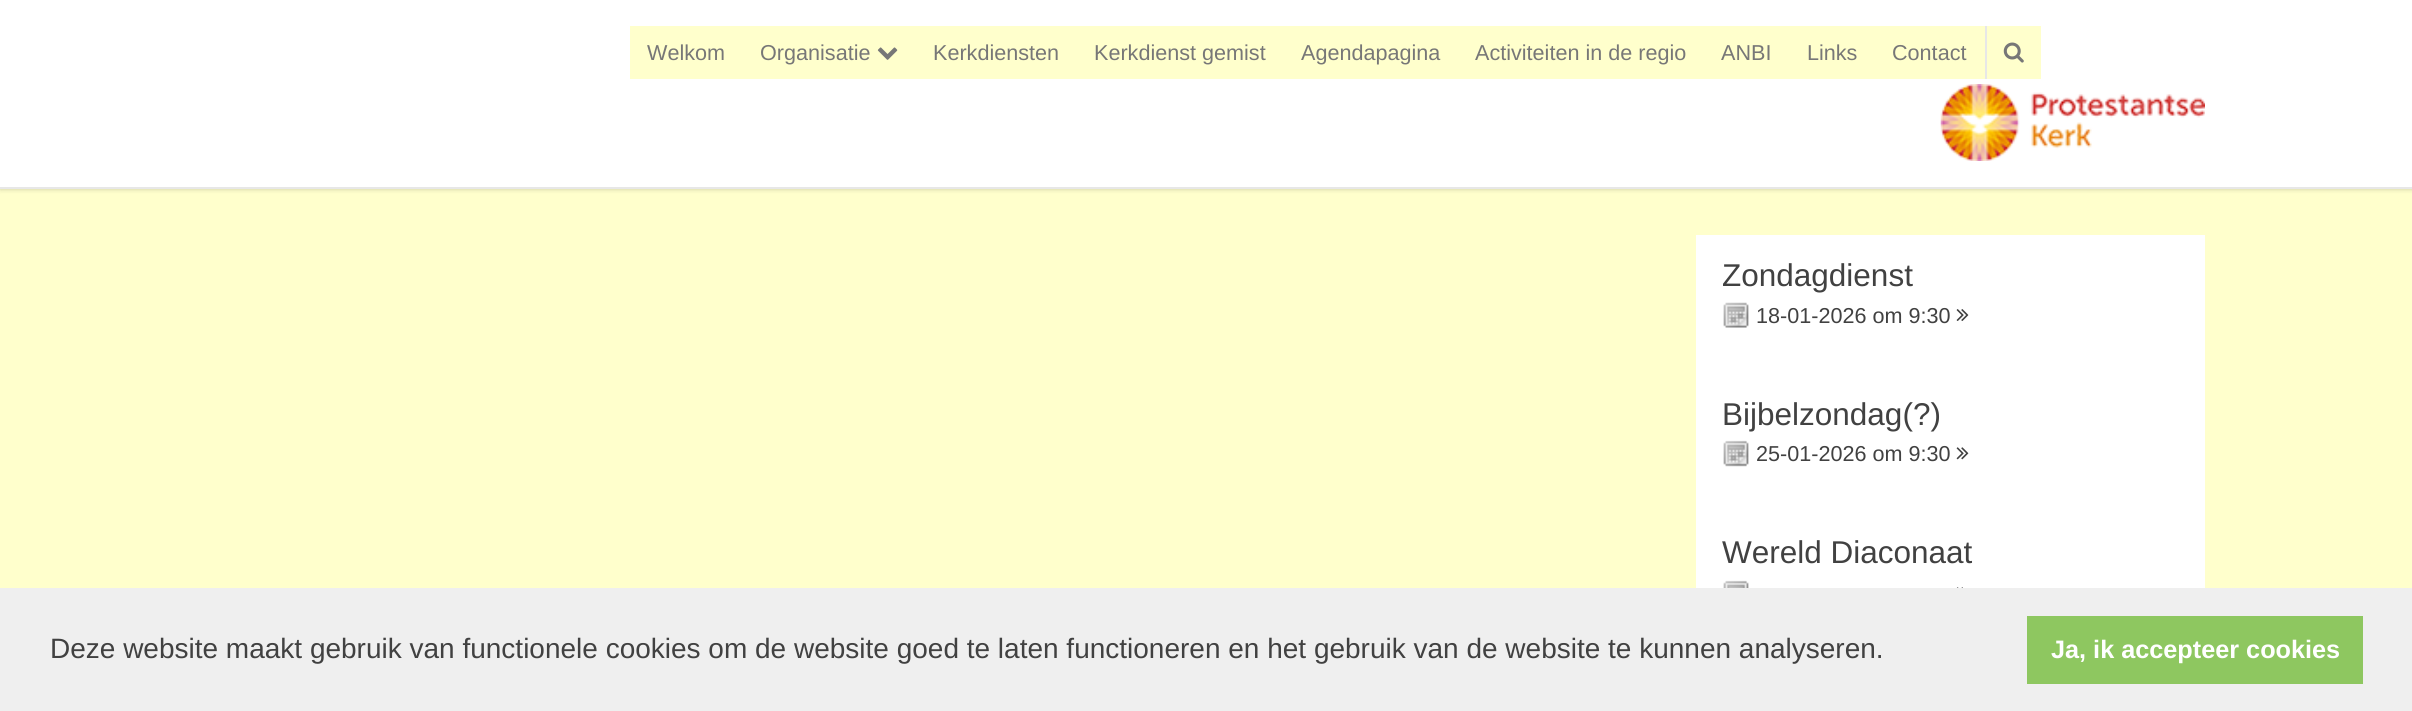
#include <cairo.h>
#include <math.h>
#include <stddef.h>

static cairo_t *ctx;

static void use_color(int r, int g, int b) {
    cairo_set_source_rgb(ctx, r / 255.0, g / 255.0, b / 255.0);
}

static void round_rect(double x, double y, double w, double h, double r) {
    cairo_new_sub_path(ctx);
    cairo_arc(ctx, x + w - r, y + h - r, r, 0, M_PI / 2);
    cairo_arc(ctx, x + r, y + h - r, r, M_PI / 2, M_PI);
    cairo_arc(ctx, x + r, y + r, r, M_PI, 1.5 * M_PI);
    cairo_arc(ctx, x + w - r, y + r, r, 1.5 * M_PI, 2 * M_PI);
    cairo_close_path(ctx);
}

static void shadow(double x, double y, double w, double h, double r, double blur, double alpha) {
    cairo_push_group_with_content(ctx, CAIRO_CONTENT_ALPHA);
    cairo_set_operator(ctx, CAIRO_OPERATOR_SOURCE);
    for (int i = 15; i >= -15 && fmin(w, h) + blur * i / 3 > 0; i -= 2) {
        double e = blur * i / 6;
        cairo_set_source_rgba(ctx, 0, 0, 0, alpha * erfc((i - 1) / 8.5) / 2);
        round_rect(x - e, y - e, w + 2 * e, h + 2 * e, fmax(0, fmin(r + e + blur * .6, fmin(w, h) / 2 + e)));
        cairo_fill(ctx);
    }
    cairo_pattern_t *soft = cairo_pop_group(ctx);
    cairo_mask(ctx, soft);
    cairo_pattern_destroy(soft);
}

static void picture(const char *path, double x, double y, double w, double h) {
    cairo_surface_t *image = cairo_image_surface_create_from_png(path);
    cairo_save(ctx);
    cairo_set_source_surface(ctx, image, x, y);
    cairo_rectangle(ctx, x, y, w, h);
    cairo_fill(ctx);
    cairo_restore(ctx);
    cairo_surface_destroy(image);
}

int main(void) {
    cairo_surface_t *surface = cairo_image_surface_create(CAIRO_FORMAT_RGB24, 2412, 711);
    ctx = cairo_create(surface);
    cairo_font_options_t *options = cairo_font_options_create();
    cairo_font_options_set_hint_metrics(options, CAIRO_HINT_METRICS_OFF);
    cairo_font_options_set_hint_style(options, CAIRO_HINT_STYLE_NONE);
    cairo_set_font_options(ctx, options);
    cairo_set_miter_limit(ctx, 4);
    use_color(255, 255, 204);
    cairo_paint(ctx);
    use_color(0, 0, 0);
    shadow(0, 0, 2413, 189, 0, 2.5, 0.22);
    use_color(255, 255, 255);
    cairo_rectangle(ctx, 0, 0, 2412, 187);
    cairo_fill(ctx);
    use_color(231, 231, 231);
    cairo_rectangle(ctx, 0, 187, 2412, 2);
    cairo_fill(ctx);
    use_color(255, 255, 204);
    cairo_rectangle(ctx, 630, 26, 1355, 53);
    cairo_fill(ctx);
    cairo_select_font_face(ctx, "Liberation Sans", CAIRO_FONT_SLANT_NORMAL, CAIRO_FONT_WEIGHT_NORMAL);
    cairo_set_font_size(ctx, 21.6);
    use_color(119, 119, 119);
    cairo_move_to(ctx, 647, 60);
    cairo_show_text(ctx, "Welkom");
    cairo_move_to(ctx, 760, 60);
    cairo_show_text(ctx, "Organisatie");
    picture("img1.png", 877, 47, 21, 13);
    cairo_move_to(ctx, 933, 60);
    cairo_show_text(ctx, "Kerkdiensten");
    cairo_move_to(ctx, 1094, 60);
    cairo_show_text(ctx, "Kerkdienst gemist");
    cairo_move_to(ctx, 1301, 60);
    cairo_show_text(ctx, "Agendapagina");
    cairo_move_to(ctx, 1475, 60);
    cairo_show_text(ctx, "Activiteiten in de regio");
    cairo_move_to(ctx, 1721, 60);
    cairo_show_text(ctx, "ANBI");
    cairo_move_to(ctx, 1807, 60);
    cairo_show_text(ctx, "Links");
    cairo_move_to(ctx, 1892, 60);
    cairo_show_text(ctx, "Contact");
    use_color(255, 255, 204);
    cairo_rectangle(ctx, 1987, 26, 54, 53);
    cairo_fill(ctx);
    use_color(231, 231, 231);
    cairo_rectangle(ctx, 1985, 26, 2, 53);
    cairo_fill(ctx);
    picture("img2.png", 2003, 42, 21, 21);
    picture("img3.png", 1940, 84, 265, 77);
    use_color(255, 255, 255);
    cairo_rectangle(ctx, 1696, 235, 509, 353);
    cairo_fill(ctx);
    cairo_set_font_size(ctx, 31.5);
    use_color(65, 65, 65);
    cairo_move_to(ctx, 1722, 286);
    cairo_show_text(ctx, "Zondagdienst");
    picture("img4.png", 1723, 302, 26, 26);
    cairo_set_font_size(ctx, 21.6);
    cairo_move_to(ctx, 1756, 323);
    cairo_show_text(ctx, "18-01-2026 om 9:30");
    picture("img5.png", 1956, 309, 13, 12);
    cairo_set_font_size(ctx, 31.5);
    cairo_move_to(ctx, 1722, 425);
    cairo_show_text(ctx, "Bijbelzondag(?)");
    picture("img6.png", 1723, 440, 26, 27);
    cairo_set_font_size(ctx, 21.6);
    cairo_move_to(ctx, 1756, 461);
    cairo_show_text(ctx, "25-01-2026 om 9:30");
    picture("img7.png", 1956, 447, 13, 13);
    cairo_set_font_size(ctx, 31.5);
    cairo_move_to(ctx, 1722, 563);
    cairo_show_text(ctx, "Wereld Diaconaat");
    picture("img8.png", 1723, 580, 26, 8);
    picture("img9.png", 1956, 587, 7, 1);
    use_color(239, 239, 239);
    cairo_rectangle(ctx, 0, 588, 2412, 123);
    cairo_fill(ctx);
    cairo_set_font_size(ctx, 28);
    use_color(65, 65, 65);
    cairo_move_to(ctx, 50, 658);
    cairo_show_text(ctx, "Deze website maakt gebruik van functionele cookies om de website goed te laten functioneren en het gebruik van de website te kunnen analyseren.");
    use_color(142, 199, 96);
    cairo_rectangle(ctx, 2027, 616, 336, 68);
    cairo_fill(ctx);
    cairo_select_font_face(ctx, "Liberation Sans", CAIRO_FONT_SLANT_NORMAL, CAIRO_FONT_WEIGHT_BOLD);
    cairo_set_font_size(ctx, 25.25);
    use_color(255, 255, 255);
    cairo_move_to(ctx, 2051, 658);
    cairo_show_text(ctx, "Ja, ik accepteer cookies");
    cairo_surface_write_to_png(surface, "result.png");
    cairo_font_options_destroy(options);
    cairo_destroy(ctx);
    cairo_surface_destroy(surface);
    return 0;
}
